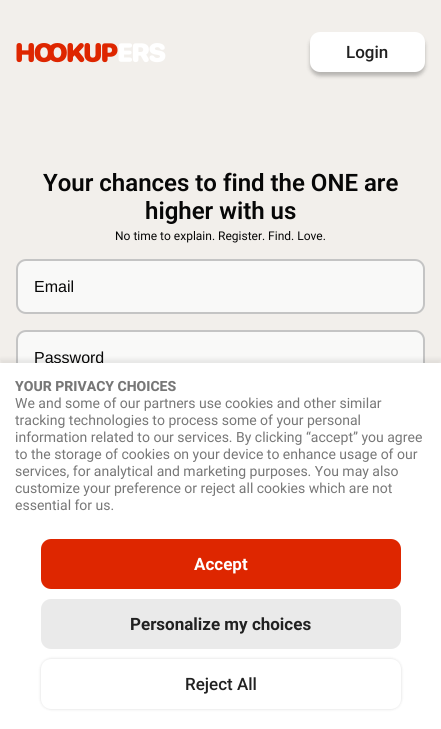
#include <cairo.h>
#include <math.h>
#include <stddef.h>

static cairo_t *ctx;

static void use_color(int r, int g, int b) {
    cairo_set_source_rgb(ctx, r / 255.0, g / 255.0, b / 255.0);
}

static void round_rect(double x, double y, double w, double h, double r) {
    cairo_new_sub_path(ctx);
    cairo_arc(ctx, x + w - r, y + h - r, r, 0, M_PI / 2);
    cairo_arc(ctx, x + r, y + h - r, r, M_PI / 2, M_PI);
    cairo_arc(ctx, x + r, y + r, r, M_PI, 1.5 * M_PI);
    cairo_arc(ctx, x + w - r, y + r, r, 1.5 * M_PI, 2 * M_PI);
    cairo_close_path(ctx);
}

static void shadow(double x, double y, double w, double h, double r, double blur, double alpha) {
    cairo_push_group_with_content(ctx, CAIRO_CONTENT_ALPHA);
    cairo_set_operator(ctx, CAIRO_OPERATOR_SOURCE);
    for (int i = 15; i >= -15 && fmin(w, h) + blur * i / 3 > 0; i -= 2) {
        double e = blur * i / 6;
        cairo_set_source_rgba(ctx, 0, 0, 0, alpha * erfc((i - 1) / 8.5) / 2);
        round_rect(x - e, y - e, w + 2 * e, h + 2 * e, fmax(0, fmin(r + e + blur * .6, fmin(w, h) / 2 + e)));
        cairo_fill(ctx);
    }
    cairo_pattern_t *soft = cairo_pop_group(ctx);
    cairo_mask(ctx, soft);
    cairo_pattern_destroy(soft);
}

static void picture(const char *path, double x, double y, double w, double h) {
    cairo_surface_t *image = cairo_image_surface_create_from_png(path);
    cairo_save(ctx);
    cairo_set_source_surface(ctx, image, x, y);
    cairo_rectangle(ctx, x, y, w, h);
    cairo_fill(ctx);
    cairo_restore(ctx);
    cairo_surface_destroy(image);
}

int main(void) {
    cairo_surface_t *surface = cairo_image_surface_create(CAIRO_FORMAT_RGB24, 441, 729);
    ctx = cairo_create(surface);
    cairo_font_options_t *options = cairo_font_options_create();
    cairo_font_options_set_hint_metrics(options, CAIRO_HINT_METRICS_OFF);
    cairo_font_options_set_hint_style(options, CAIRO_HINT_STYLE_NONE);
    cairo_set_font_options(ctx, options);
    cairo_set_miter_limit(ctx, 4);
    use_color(242, 239, 235);
    cairo_paint(ctx);
    picture("img1.png", 16, 43, 150, 20);
    use_color(0, 0, 0);
    shadow(310, 36, 115, 40, 10, 2, 0.25);
    use_color(255, 255, 255);
    round_rect(310, 32, 115, 40, 10);
    cairo_fill(ctx);
    cairo_select_font_face(ctx, "Roboto Medium", CAIRO_FONT_SLANT_NORMAL, CAIRO_FONT_WEIGHT_NORMAL);
    cairo_set_font_size(ctx, 17);
    use_color(33, 33, 33);
    cairo_move_to(ctx, 346, 58);
    cairo_show_text(ctx, "Login");
    cairo_select_font_face(ctx, "Roboto SemiBold", CAIRO_FONT_SLANT_NORMAL, CAIRO_FONT_WEIGHT_NORMAL);
    cairo_set_font_size(ctx, 24);
    use_color(7, 7, 7);
    cairo_move_to(ctx, 43, 191);
    cairo_show_text(ctx, "Your chances to find the ONE are");
    cairo_move_to(ctx, 145, 219);
    cairo_show_text(ctx, "higher with us");
    cairo_select_font_face(ctx, "Roboto", CAIRO_FONT_SLANT_NORMAL, CAIRO_FONT_WEIGHT_NORMAL);
    cairo_set_font_size(ctx, 12);
    cairo_move_to(ctx, 115, 240);
    cairo_show_text(ctx, "No time to explain. Register. Find. Love.");
    use_color(249, 249, 248);
    round_rect(17, 260, 407, 53, 9);
    cairo_fill_preserve(ctx);
    use_color(196, 196, 196);
    cairo_stroke(ctx);
    cairo_select_font_face(ctx, "Liberation Sans", CAIRO_FONT_SLANT_NORMAL, CAIRO_FONT_WEIGHT_NORMAL);
    cairo_set_font_size(ctx, 16);
    use_color(7, 7, 7);
    cairo_move_to(ctx, 34, 292);
    cairo_show_text(ctx, "Email");
    use_color(249, 249, 248);
    round_rect(17, 331, 407, 53, 9);
    cairo_fill_preserve(ctx);
    use_color(196, 196, 196);
    cairo_stroke(ctx);
    use_color(7, 7, 7);
    cairo_move_to(ctx, 34, 363);
    cairo_show_text(ctx, "Password");
    use_color(0, 0, 0);
    shadow(0, 359, 441, 366, 0, 2, 0.07);
    use_color(255, 255, 255);
    cairo_rectangle(ctx, 0, 363, 441, 366);
    cairo_fill(ctx);
    cairo_select_font_face(ctx, "Roboto ExtraBold", CAIRO_FONT_SLANT_NORMAL, CAIRO_FONT_WEIGHT_NORMAL);
    cairo_set_font_size(ctx, 14);
    use_color(119, 119, 119);
    cairo_move_to(ctx, 15, 391);
    cairo_show_text(ctx, "YOUR PRIVACY CHOICES");
    cairo_select_font_face(ctx, "Roboto", CAIRO_FONT_SLANT_NORMAL, CAIRO_FONT_WEIGHT_NORMAL);
    cairo_move_to(ctx, 15, 408);
    cairo_show_text(ctx, "We and some of our partners use cookies and other similar");
    cairo_move_to(ctx, 15, 425);
    cairo_show_text(ctx, "tracking technologies to process some of your personal");
    cairo_move_to(ctx, 15, 442);
    cairo_show_text(ctx, "information related to our services. By clicking “accept” you agree");
    cairo_move_to(ctx, 15, 459);
    cairo_show_text(ctx, "to the storage of cookies on your device to enhance usage of our");
    cairo_move_to(ctx, 15, 476);
    cairo_show_text(ctx, "services, for analytical and marketing purposes. You may also");
    cairo_move_to(ctx, 15, 493);
    cairo_show_text(ctx, "customize your preference or reject all cookies which are not");
    cairo_move_to(ctx, 15, 510);
    cairo_show_text(ctx, "essential for us.");
    use_color(222, 38, 0);
    round_rect(41, 539, 360, 50, 10);
    cairo_fill(ctx);
    cairo_select_font_face(ctx, "Roboto", CAIRO_FONT_SLANT_NORMAL, CAIRO_FONT_WEIGHT_BOLD);
    cairo_set_font_size(ctx, 17);
    use_color(255, 255, 255);
    cairo_move_to(ctx, 194, 570);
    cairo_show_text(ctx, "Accept");
    use_color(234, 234, 234);
    round_rect(41, 599, 360, 50, 10);
    cairo_fill(ctx);
    use_color(33, 33, 33);
    cairo_move_to(ctx, 130, 630);
    cairo_show_text(ctx, "Personalize my choices");
    use_color(0, 0, 0);
    shadow(41, 659, 360, 50, 10, 1.5, 0.15);
    use_color(255, 255, 255);
    round_rect(41, 659, 360, 50, 10);
    cairo_fill(ctx);
    cairo_select_font_face(ctx, "Roboto Medium", CAIRO_FONT_SLANT_NORMAL, CAIRO_FONT_WEIGHT_NORMAL);
    use_color(33, 33, 33);
    cairo_move_to(ctx, 185, 690);
    cairo_show_text(ctx, "Reject All");
    cairo_surface_write_to_png(surface, "result.png");
    cairo_font_options_destroy(options);
    cairo_destroy(ctx);
    cairo_surface_destroy(surface);
    return 0;
}
